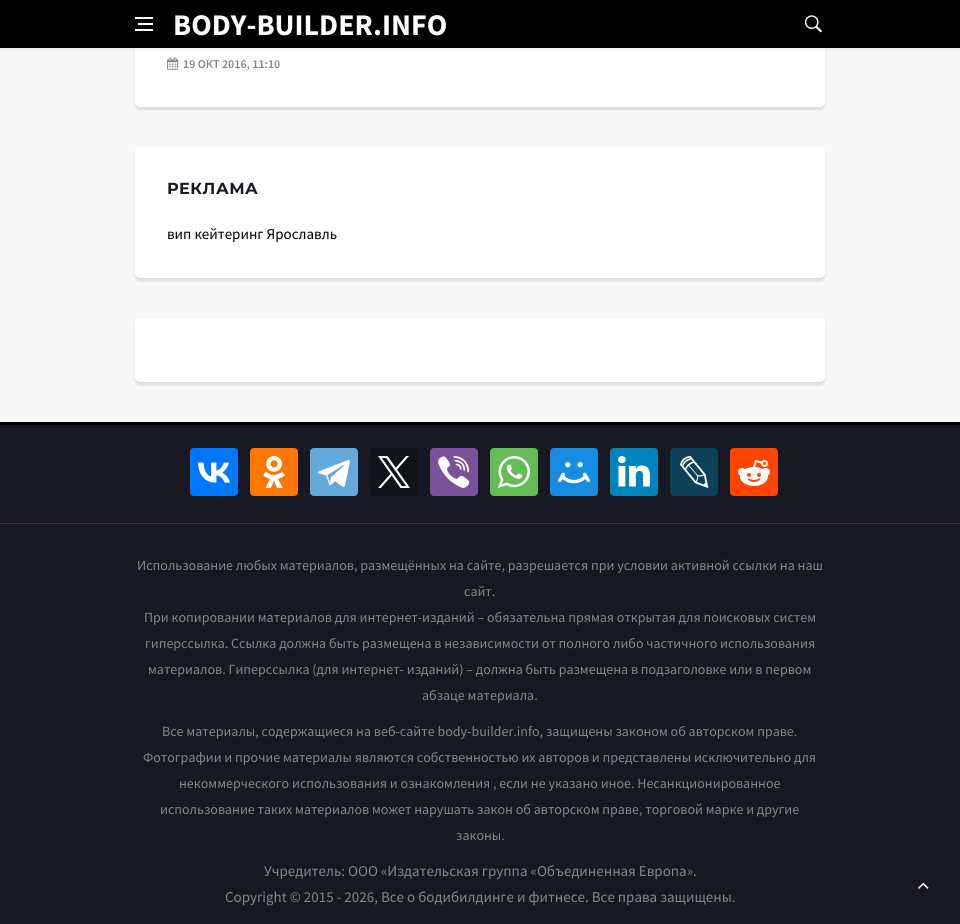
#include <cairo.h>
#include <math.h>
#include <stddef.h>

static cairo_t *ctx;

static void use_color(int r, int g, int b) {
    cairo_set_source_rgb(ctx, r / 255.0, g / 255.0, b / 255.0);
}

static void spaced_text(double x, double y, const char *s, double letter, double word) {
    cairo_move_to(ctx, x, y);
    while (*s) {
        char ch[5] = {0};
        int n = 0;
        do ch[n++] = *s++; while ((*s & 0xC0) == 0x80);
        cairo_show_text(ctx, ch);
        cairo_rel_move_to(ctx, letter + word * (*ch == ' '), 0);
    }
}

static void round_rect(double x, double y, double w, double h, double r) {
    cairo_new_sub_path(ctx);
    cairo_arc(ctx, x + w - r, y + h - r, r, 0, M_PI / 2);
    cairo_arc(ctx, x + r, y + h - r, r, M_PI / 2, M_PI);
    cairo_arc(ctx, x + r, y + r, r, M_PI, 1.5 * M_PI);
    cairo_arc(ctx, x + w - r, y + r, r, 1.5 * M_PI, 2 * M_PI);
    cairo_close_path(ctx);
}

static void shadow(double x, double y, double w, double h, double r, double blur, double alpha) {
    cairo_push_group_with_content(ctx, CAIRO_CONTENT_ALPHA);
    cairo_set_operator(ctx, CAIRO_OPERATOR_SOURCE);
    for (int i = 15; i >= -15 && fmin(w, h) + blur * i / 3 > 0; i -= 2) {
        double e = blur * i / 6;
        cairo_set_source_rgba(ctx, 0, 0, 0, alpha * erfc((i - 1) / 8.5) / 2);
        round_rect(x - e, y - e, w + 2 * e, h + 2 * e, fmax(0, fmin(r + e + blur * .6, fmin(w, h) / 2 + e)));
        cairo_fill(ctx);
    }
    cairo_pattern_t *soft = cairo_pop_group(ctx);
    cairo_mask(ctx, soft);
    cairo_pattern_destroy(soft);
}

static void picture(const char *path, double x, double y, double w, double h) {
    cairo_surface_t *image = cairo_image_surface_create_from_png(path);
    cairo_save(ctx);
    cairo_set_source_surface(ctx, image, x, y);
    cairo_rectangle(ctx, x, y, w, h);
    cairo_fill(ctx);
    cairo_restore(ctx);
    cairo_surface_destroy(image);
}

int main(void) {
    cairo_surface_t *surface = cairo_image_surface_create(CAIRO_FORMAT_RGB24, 960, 924);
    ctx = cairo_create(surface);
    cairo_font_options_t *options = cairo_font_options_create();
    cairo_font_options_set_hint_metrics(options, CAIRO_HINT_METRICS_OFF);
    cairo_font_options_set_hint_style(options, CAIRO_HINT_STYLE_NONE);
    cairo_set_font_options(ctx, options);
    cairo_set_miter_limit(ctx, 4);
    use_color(247, 247, 247);
    cairo_paint(ctx);
    use_color(0, 0, 0);
    shadow(135, -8, 690, 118, 5, 1, 0.1);
    use_color(255, 255, 255);
    round_rect(135, -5, 690, 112, 5);
    cairo_fill(ctx);
    use_color(0, 0, 0);
    shadow(0, 0, 960, 48, 0, 2.5, 0.1);
    use_color(0, 0, 0);
    cairo_rectangle(ctx, 0, 0, 960, 48);
    cairo_fill(ctx);
    use_color(255, 255, 255);
    cairo_rectangle(ctx, 138, 23, 15, 2);
    cairo_fill(ctx);
    cairo_rectangle(ctx, 135, 17, 18, 2);
    cairo_fill(ctx);
    cairo_rectangle(ctx, 135, 29, 18, 2);
    cairo_fill(ctx);
    cairo_select_font_face(ctx, "Source Sans Pro", CAIRO_FONT_SLANT_NORMAL, CAIRO_FONT_WEIGHT_BOLD);
    cairo_set_font_size(ctx, 30);
    cairo_move_to(ctx, 173, 35);
    cairo_show_text(ctx, "BODY-BUILDER.INFO");
    picture("img1.png", 804, 15, 18, 18);
    picture("img2.png", 167, 57, 12, 13);
    cairo_select_font_face(ctx, "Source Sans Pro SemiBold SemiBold", CAIRO_FONT_SLANT_NORMAL, CAIRO_FONT_WEIGHT_NORMAL);
    cairo_set_font_size(ctx, 12);
    use_color(131, 133, 143);
    cairo_move_to(ctx, 183, 68);
    cairo_show_text(ctx, "19 ОКТ 2016, 11:10");
    use_color(0, 0, 0);
    shadow(135, 150, 690, 131, 5, 1, 0.1);
    use_color(255, 255, 255);
    round_rect(135, 147, 690, 131, 5);
    cairo_fill(ctx);
    cairo_select_font_face(ctx, "Montserrat", CAIRO_FONT_SLANT_NORMAL, CAIRO_FONT_WEIGHT_BOLD);
    cairo_set_font_size(ctx, 16);
    use_color(23, 24, 33);
    spaced_text(167, 194, "РЕКЛАМА", 0.5, 0);
    cairo_select_font_face(ctx, "Source Sans Pro", CAIRO_FONT_SLANT_NORMAL, CAIRO_FONT_WEIGHT_NORMAL);
    cairo_set_font_size(ctx, 15);
    use_color(0, 0, 0);
    cairo_move_to(ctx, 167, 239);
    cairo_show_text(ctx, "вип кейтеринг Ярославль");
    use_color(0, 0, 0);
    shadow(135, 321, 690, 64, 5, 1, 0.1);
    use_color(255, 255, 255);
    round_rect(135, 318, 690, 64, 5);
    cairo_fill(ctx);
    use_color(23, 24, 33);
    cairo_rectangle(ctx, 0, 425, 960, 499);
    cairo_fill(ctx);
    use_color(0, 0, 0);
    cairo_rectangle(ctx, 0, 422, 960, 3);
    cairo_fill(ctx);
    use_color(51, 51, 51);
    cairo_rectangle(ctx, 0, 523, 960, 1);
    cairo_fill(ctx);
    use_color(0, 119, 255);
    round_rect(190, 448, 48, 48, 4);
    cairo_fill(ctx);
    picture("img3.png", 198, 462, 33, 21);
    use_color(255, 119, 0);
    round_rect(250, 448, 48, 48, 4);
    cairo_fill(ctx);
    picture("img4.png", 263, 456, 22, 32);
    use_color(100, 169, 220);
    round_rect(310, 448, 48, 48, 4);
    cairo_fill(ctx);
    picture("img5.png", 318, 460, 32, 27);
    use_color(15, 20, 25);
    round_rect(370, 448, 48, 48, 4);
    cairo_fill(ctx);
    picture("img6.png", 378, 456, 32, 32);
    use_color(123, 81, 157);
    round_rect(430, 448, 48, 48, 4);
    cairo_fill(ctx);
    picture("img7.png", 438, 456, 32, 32);
    use_color(101, 188, 84);
    round_rect(490, 448, 48, 48, 4);
    cairo_fill(ctx);
    picture("img8.png", 498, 456, 32, 32);
    use_color(22, 141, 226);
    round_rect(550, 448, 48, 48, 4);
    cairo_fill(ctx);
    picture("img9.png", 558, 462, 32, 22);
    use_color(0, 131, 190);
    round_rect(610, 448, 48, 48, 4);
    cairo_fill(ctx);
    picture("img10.png", 618, 456, 32, 31);
    use_color(13, 66, 90);
    round_rect(670, 448, 48, 48, 4);
    cairo_fill(ctx);
    picture("img11.png", 680, 456, 29, 32);
    use_color(255, 69, 0);
    round_rect(730, 448, 48, 48, 4);
    cairo_fill(ctx);
    picture("img12.png", 738, 460, 32, 26);
    cairo_set_font_size(ctx, 14);
    use_color(131, 133, 143);
    cairo_move_to(ctx, 137, 570);
    cairo_show_text(ctx, "Использование любых материалов, размещённых на сайте, разрешается при условии активной ссылки на наш");
    cairo_move_to(ctx, 464, 596);
    cairo_show_text(ctx, "сайт.");
    cairo_move_to(ctx, 144, 622);
    cairo_show_text(ctx, "При копировании материалов для интернет-изданий – обязательна прямая открытая для поисковых систем");
    cairo_move_to(ctx, 145, 648);
    cairo_show_text(ctx, "гиперссылка. Ссылка должна быть размещена в независимости от полного либо частичного использования");
    cairo_move_to(ctx, 148, 674);
    cairo_show_text(ctx, "материалов. Гиперссылка (для интернет- изданий) – должна быть размещена в подзаголовке или в первом");
    cairo_move_to(ctx, 422, 700);
    cairo_show_text(ctx, "абзаце материала.");
    cairo_move_to(ctx, 162, 736);
    cairo_show_text(ctx, "Все материалы, содержащиеся на веб-сайте body-builder.info, защищены законом об авторском праве.");
    cairo_move_to(ctx, 143, 762);
    cairo_show_text(ctx, "Фотографии и прочие материалы являются собственностью их авторов и представлены исключительно для");
    cairo_move_to(ctx, 179, 788);
    cairo_show_text(ctx, "некоммерческого использования и ознакомления , если не указано иное. Несанкционированное");
    cairo_move_to(ctx, 160, 814);
    cairo_show_text(ctx, "использование таких материалов может нарушать закон об авторском праве, торговой марке и другие");
    cairo_move_to(ctx, 456, 840);
    cairo_show_text(ctx, "законы.");
    cairo_set_font_size(ctx, 15);
    cairo_move_to(ctx, 264, 876);
    cairo_show_text(ctx, "Учредитель: ООО «Издательская группа «Объединенная Европа».");
    cairo_move_to(ctx, 225, 902);
    cairo_show_text(ctx, "Copyright © 2015 - 2026, Все о бодибилдинге и фитнесе. Все права защищены.");
    picture("img13.png", 918, 882, 11, 7);
    cairo_surface_write_to_png(surface, "result.png");
    cairo_font_options_destroy(options);
    cairo_destroy(ctx);
    cairo_surface_destroy(surface);
    return 0;
}
